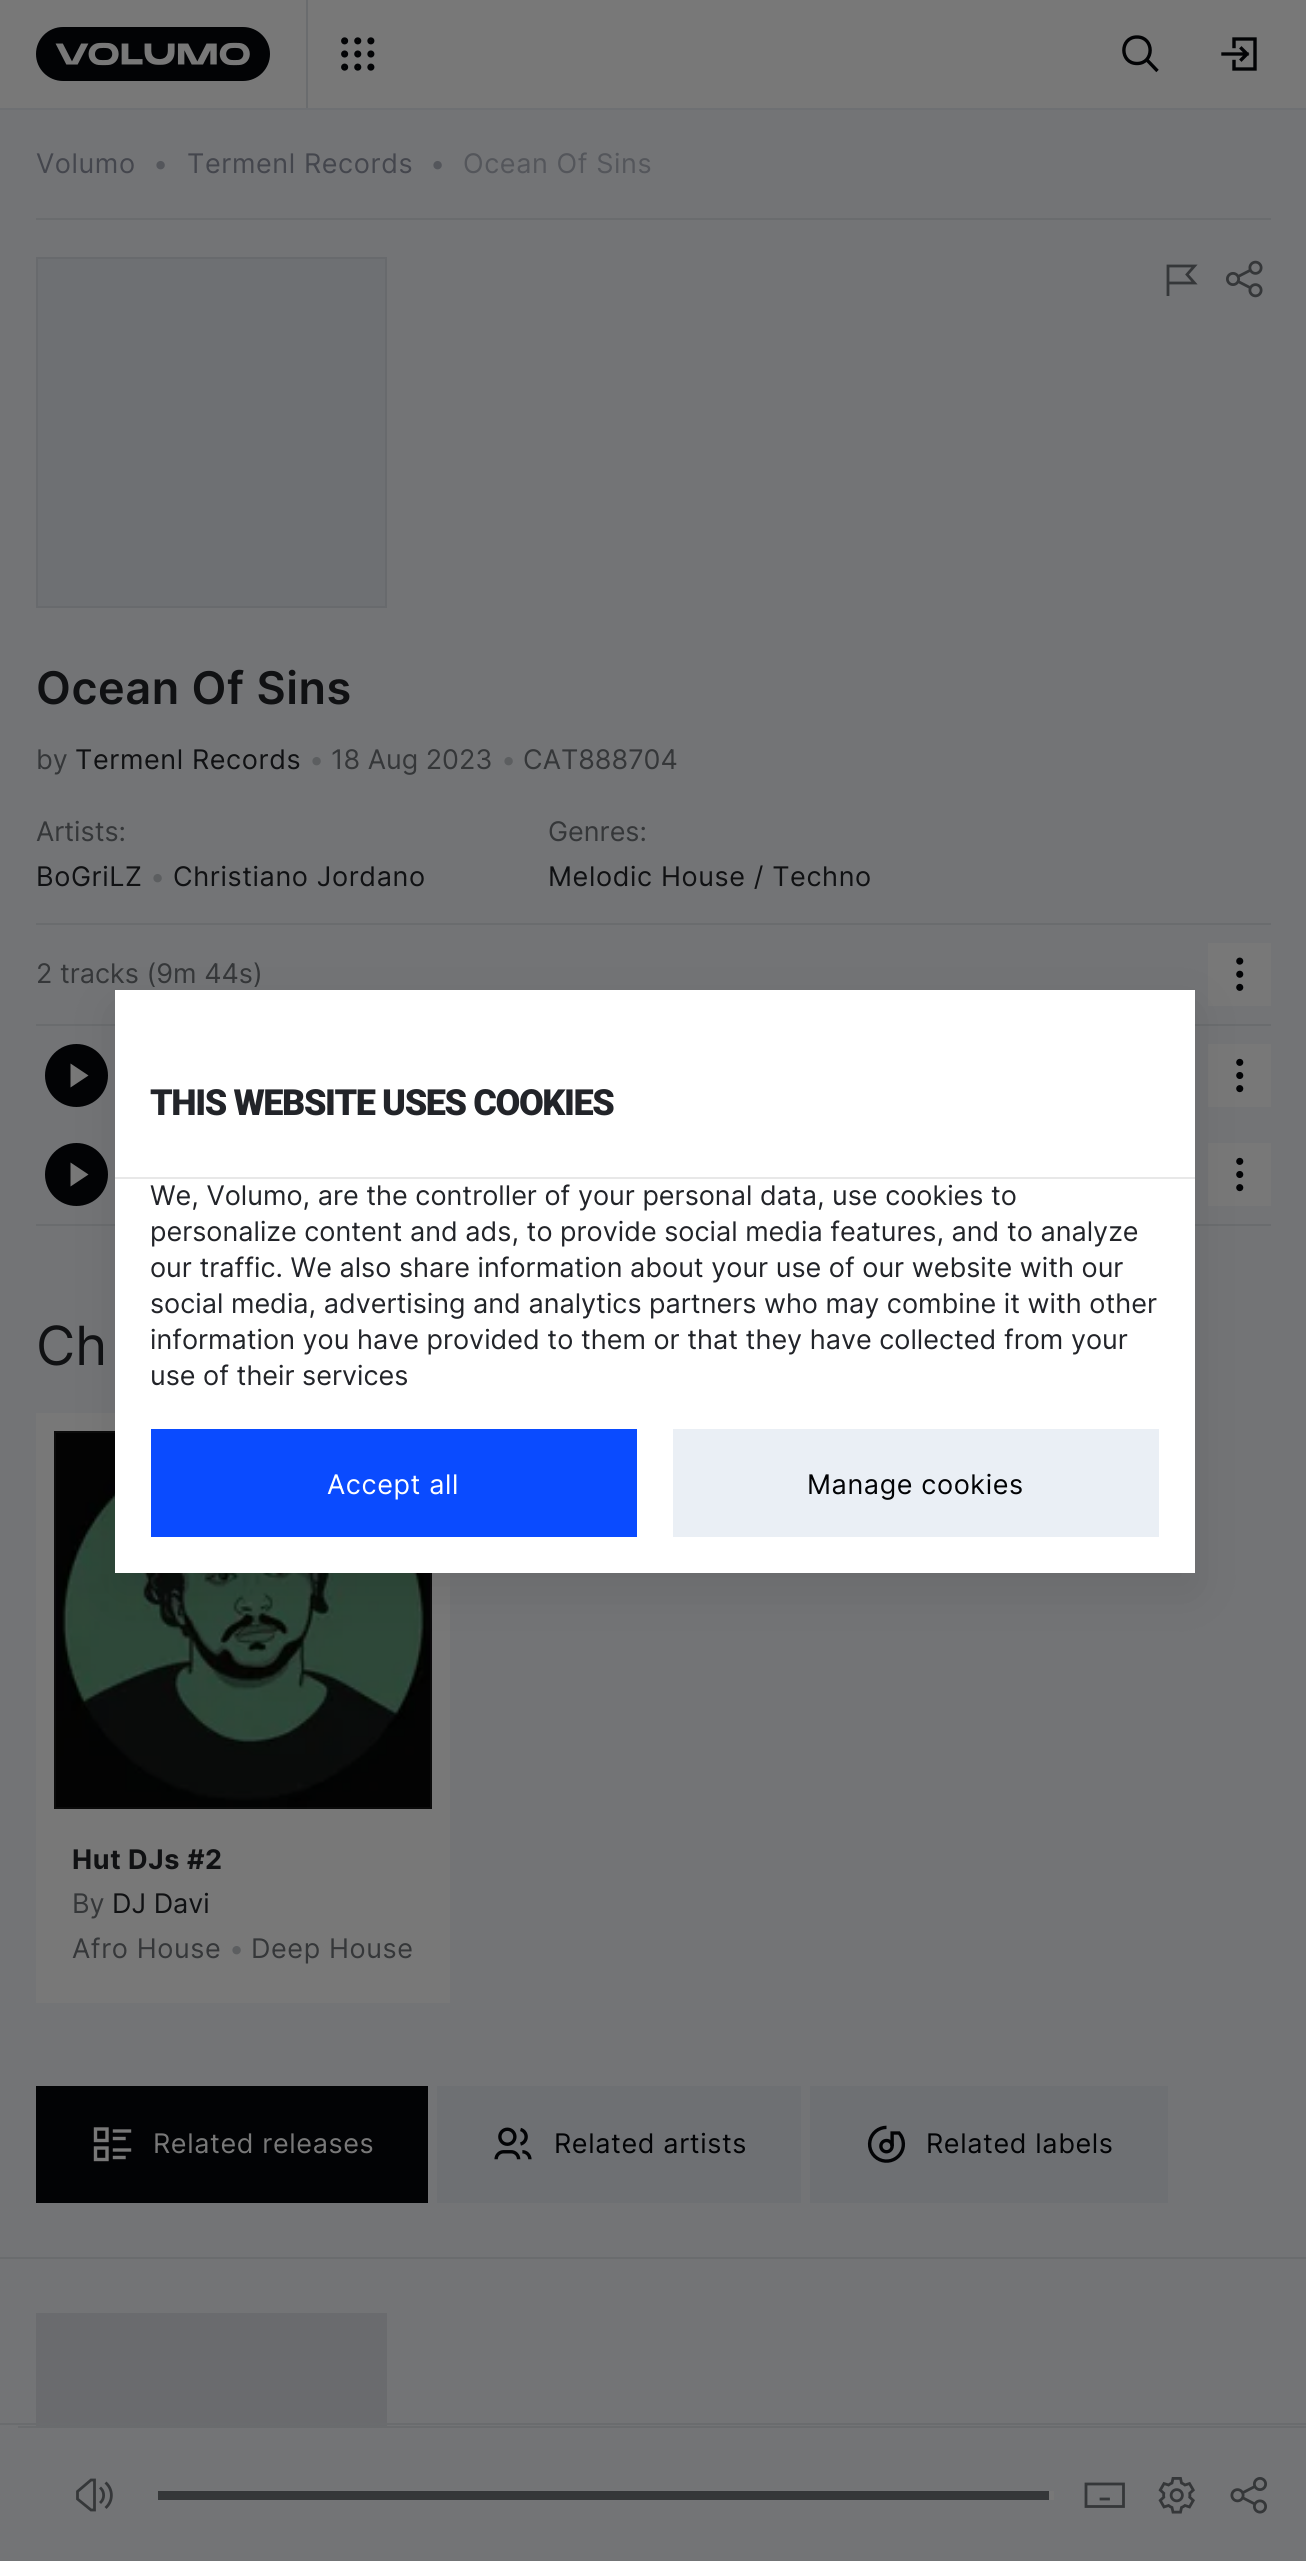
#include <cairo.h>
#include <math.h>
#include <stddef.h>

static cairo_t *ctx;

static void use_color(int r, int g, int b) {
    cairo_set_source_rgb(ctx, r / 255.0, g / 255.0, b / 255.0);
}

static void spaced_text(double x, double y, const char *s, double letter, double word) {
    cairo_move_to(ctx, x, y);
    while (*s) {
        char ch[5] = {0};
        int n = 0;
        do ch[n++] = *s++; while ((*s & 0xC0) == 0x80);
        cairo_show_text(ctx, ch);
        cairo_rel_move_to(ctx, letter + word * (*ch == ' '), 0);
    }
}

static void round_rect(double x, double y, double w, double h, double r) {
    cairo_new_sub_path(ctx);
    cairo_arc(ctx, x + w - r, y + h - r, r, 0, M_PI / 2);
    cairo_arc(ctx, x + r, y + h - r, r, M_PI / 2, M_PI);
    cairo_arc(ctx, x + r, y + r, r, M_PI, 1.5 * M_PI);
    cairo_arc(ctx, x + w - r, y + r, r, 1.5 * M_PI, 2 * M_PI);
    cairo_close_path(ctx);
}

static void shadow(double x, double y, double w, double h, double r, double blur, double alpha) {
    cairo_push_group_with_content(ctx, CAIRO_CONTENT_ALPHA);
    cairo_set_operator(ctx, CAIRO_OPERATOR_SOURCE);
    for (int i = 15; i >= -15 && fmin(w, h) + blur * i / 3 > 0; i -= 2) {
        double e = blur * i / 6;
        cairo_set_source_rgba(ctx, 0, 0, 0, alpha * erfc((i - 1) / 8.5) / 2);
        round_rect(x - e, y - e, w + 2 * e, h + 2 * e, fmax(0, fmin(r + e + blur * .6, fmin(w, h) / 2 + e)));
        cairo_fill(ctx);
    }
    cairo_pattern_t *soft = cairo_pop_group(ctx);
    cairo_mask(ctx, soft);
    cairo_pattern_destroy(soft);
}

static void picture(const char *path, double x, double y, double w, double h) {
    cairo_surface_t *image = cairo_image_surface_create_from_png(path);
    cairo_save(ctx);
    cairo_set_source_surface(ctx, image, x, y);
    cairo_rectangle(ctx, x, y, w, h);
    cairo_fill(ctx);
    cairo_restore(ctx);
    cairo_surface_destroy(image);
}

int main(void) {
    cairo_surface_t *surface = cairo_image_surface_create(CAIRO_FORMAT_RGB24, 1306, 2561);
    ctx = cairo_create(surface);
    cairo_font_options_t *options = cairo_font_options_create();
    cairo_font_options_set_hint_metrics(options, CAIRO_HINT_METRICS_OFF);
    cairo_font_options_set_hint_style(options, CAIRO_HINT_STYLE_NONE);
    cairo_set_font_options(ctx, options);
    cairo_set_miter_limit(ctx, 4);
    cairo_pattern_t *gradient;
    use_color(115, 116, 118);
    cairo_paint(ctx);
    use_color(120, 120, 120);
    cairo_rectangle(ctx, 0, 0, 1306, 108);
    cairo_fill(ctx);
    use_color(110, 112, 115);
    cairo_rectangle(ctx, 0, 108, 1306, 2);
    cairo_fill(ctx);
    picture("img1.png", 36, 27, 234, 54);
    use_color(106, 108, 110);
    cairo_rectangle(ctx, 306, 0, 2, 108);
    cairo_fill(ctx);
    picture("img2.png", 341, 37, 34, 34);
    cairo_new_path(ctx);
    cairo_move_to(ctx, 1137, 63.5);
    cairo_curve_to(ctx, 1154.5, 63.5, 1154.5, 37, 1137, 37);
    cairo_curve_to(ctx, 1119.5, 37, 1119.5, 63.5, 1137, 63.5);
    use_color(2, 3, 5);
    cairo_set_line_width(ctx, 3.4);
    cairo_set_line_cap(ctx, CAIRO_LINE_CAP_ROUND);
    cairo_set_line_join(ctx, CAIRO_LINE_JOIN_ROUND);
    cairo_stroke(ctx);
    cairo_new_path(ctx);
    cairo_move_to(ctx, 1157.5, 71);
    cairo_line_to(ctx, 1146.5, 59.5);
    cairo_set_line_cap(ctx, CAIRO_LINE_CAP_BUTT);
    cairo_stroke(ctx);
    cairo_new_path(ctx);
    cairo_move_to(ctx, 1234, 46.5);
    cairo_line_to(ctx, 1234, 39);
    cairo_line_to(ctx, 1255, 39);
    cairo_line_to(ctx, 1255, 69);
    cairo_line_to(ctx, 1234, 69);
    cairo_line_to(ctx, 1234, 61.5);
    cairo_move_to(ctx, 1223, 54);
    cairo_line_to(ctx, 1247, 54);
    cairo_move_to(ctx, 1247, 54);
    cairo_line_to(ctx, 1241.5, 48.5);
    cairo_move_to(ctx, 1247, 54);
    cairo_line_to(ctx, 1241.5, 59.5);
    cairo_set_line_cap(ctx, CAIRO_LINE_CAP_SQUARE);
    cairo_set_line_join(ctx, CAIRO_LINE_JOIN_MITER);
    cairo_stroke(ctx);
    cairo_select_font_face(ctx, "Inter", CAIRO_FONT_SLANT_NORMAL, CAIRO_FONT_WEIGHT_NORMAL);
    cairo_set_font_size(ctx, 27);
    use_color(68, 70, 77);
    spaced_text(36, 173, "Volumo", 0.6, 0);
    use_color(84, 86, 91);
    cairo_move_to(ctx, 153, 173);
    cairo_show_text(ctx, "•");
    use_color(68, 70, 77);
    spaced_text(187, 173, "Termenl Records", 0.6, 0);
    use_color(84, 86, 91);
    cairo_move_to(ctx, 430, 173);
    cairo_show_text(ctx, "•");
    spaced_text(463, 173, "Ocean Of Sins", 0.6, 0);
    use_color(106, 108, 110);
    cairo_rectangle(ctx, 36, 218, 1235, 2);
    cairo_fill(ctx);
    use_color(110, 112, 115);
    cairo_rectangle(ctx, 37, 258, 349, 349);
    cairo_fill_preserve(ctx);
    use_color(104, 106, 109);
    cairo_set_line_width(ctx, 2);
    cairo_set_line_cap(ctx, CAIRO_LINE_CAP_BUTT);
    cairo_stroke(ctx);
    cairo_new_path(ctx);
    cairo_move_to(ctx, 1168, 283);
    cairo_line_to(ctx, 1194.5, 283);
    cairo_line_to(ctx, 1187, 274.5);
    cairo_line_to(ctx, 1194.5, 266);
    cairo_line_to(ctx, 1168, 266);
    cairo_line_to(ctx, 1168, 296);
    use_color(53, 55, 57);
    cairo_set_line_width(ctx, 2.8);
    cairo_stroke(ctx);
    picture("img3.png", 1226, 260, 37, 38);
    cairo_select_font_face(ctx, "Inter SemiBold", CAIRO_FONT_SLANT_NORMAL, CAIRO_FONT_WEIGHT_NORMAL);
    cairo_set_font_size(ctx, 45);
    use_color(16, 17, 19);
    spaced_text(36, 704, "Ocean Of Sins", 0.6, 0);
    cairo_select_font_face(ctx, "Inter", CAIRO_FONT_SLANT_NORMAL, CAIRO_FONT_WEIGHT_NORMAL);
    cairo_set_font_size(ctx, 27);
    use_color(53, 55, 57);
    cairo_move_to(ctx, 36, 769);
    cairo_show_text(ctx, "by");
    use_color(16, 17, 19);
    spaced_text(75, 769, "Termenl Records", 0.6, 0);
    use_color(92, 94, 96);
    cairo_move_to(ctx, 309, 769);
    cairo_show_text(ctx, "•");
    use_color(53, 55, 57);
    cairo_move_to(ctx, 331, 769);
    cairo_show_text(ctx, "18 Aug 2023");
    use_color(92, 94, 96);
    cairo_move_to(ctx, 501, 769);
    cairo_show_text(ctx, "•");
    use_color(53, 55, 57);
    cairo_move_to(ctx, 523, 769);
    cairo_show_text(ctx, "CAT888704");
    cairo_move_to(ctx, 36, 841);
    cairo_show_text(ctx, "Artists:");
    use_color(16, 17, 19);
    spaced_text(36, 886, "BoGriLZ", 0.6, 0);
    use_color(92, 94, 96);
    cairo_move_to(ctx, 150, 886);
    cairo_show_text(ctx, "•");
    use_color(16, 17, 19);
    spaced_text(173, 886, "Christiano Jordano", 0.6, 0);
    use_color(53, 55, 57);
    cairo_move_to(ctx, 548, 841);
    cairo_show_text(ctx, "Genres:");
    use_color(16, 17, 19);
    spaced_text(548, 886, "Melodic House / Techno", 0.6, 0);
    use_color(106, 108, 110);
    cairo_rectangle(ctx, 36, 923, 1235, 2);
    cairo_fill(ctx);
    use_color(53, 55, 57);
    cairo_move_to(ctx, 36, 983);
    cairo_show_text(ctx, "2 tracks (9m 44s)");
    use_color(120, 120, 120);
    cairo_rectangle(ctx, 1208, 943, 63, 63);
    cairo_fill(ctx);
    picture("img4.png", 1236, 957, 8, 34);
    use_color(106, 108, 110);
    cairo_rectangle(ctx, 36, 1024, 1235, 2);
    cairo_fill(ctx);
    use_color(2, 3, 5);
    cairo_arc(ctx, 76.5, 1075.5, 31.5, 0, 2 * M_PI);
    cairo_fill(ctx);
    use_color(120, 120, 120);
    cairo_new_path(ctx);
    cairo_move_to(ctx, 70.5, 1063.5);
    cairo_line_to(ctx, 88.5, 1075.5);
    cairo_line_to(ctx, 70.5, 1087.5);
    cairo_close_path(ctx);
    cairo_fill(ctx);
    cairo_rectangle(ctx, 1208, 1044, 63, 63);
    cairo_fill(ctx);
    picture("img5.png", 1236, 1058, 8, 35);
    use_color(2, 3, 5);
    cairo_arc(ctx, 76.5, 1174.5, 31.5, 0, 2 * M_PI);
    cairo_fill(ctx);
    use_color(120, 120, 120);
    cairo_new_path(ctx);
    cairo_move_to(ctx, 70.5, 1162.5);
    cairo_line_to(ctx, 88.5, 1174.5);
    cairo_line_to(ctx, 70.5, 1186.5);
    cairo_close_path(ctx);
    cairo_fill(ctx);
    cairo_rectangle(ctx, 1208, 1143, 63, 63);
    cairo_fill(ctx);
    picture("img5.png", 1236, 1157, 8, 35);
    use_color(106, 108, 110);
    cairo_rectangle(ctx, 36, 1224, 1235, 2);
    cairo_fill(ctx);
    cairo_set_font_size(ctx, 54);
    use_color(16, 17, 19);
    cairo_move_to(ctx, 36, 1365);
    cairo_show_text(ctx, "Ch");
    use_color(120, 120, 120);
    cairo_rectangle(ctx, 36, 1413, 414, 590);
    cairo_fill(ctx);
    picture("img6.png", 54, 1431, 378, 378);
    cairo_rectangle(ctx, 55, 1432, 376, 376);
    cairo_set_source_rgba(ctx, 0.251, 0.251, 0.251, 0.13);
    cairo_set_line_width(ctx, 2);
    cairo_stroke(ctx);
    cairo_select_font_face(ctx, "Inter", CAIRO_FONT_SLANT_NORMAL, CAIRO_FONT_WEIGHT_BOLD);
    cairo_set_font_size(ctx, 27);
    use_color(16, 17, 19);
    spaced_text(72, 1869, "Hut DJs #2", 0.6, 0);
    cairo_select_font_face(ctx, "Inter", CAIRO_FONT_SLANT_NORMAL, CAIRO_FONT_WEIGHT_NORMAL);
    use_color(53, 55, 57);
    cairo_move_to(ctx, 72, 1913);
    cairo_show_text(ctx, "By");
    use_color(16, 17, 19);
    cairo_move_to(ctx, 112, 1913);
    cairo_show_text(ctx, "DJ Davi");
    use_color(53, 55, 57);
    spaced_text(72, 1958, "Afro House", 0.6, 0);
    use_color(92, 94, 96);
    cairo_move_to(ctx, 229, 1958);
    cairo_show_text(ctx, "•");
    use_color(53, 55, 57);
    spaced_text(251, 1958, "Deep House", 0.6, 0);
    use_color(2, 3, 5);
    cairo_rectangle(ctx, 36, 2086, 392, 117);
    cairo_fill(ctx);
    cairo_new_path(ctx);
    cairo_move_to(ctx, 114.5, 2131);
    cairo_line_to(ctx, 129.5, 2131);
    cairo_move_to(ctx, 114.5, 2138.5);
    cairo_line_to(ctx, 124, 2138.5);
    cairo_move_to(ctx, 114.5, 2150);
    cairo_line_to(ctx, 129.5, 2150);
    cairo_move_to(ctx, 114.5, 2157.5);
    cairo_line_to(ctx, 124, 2157.5);
    use_color(120, 120, 120);
    cairo_set_line_width(ctx, 3.4);
    cairo_set_line_cap(ctx, CAIRO_LINE_CAP_SQUARE);
    cairo_set_line_join(ctx, CAIRO_LINE_JOIN_ROUND);
    cairo_stroke(ctx);
    cairo_new_path(ctx);
    cairo_move_to(ctx, 107, 2129);
    cairo_line_to(ctx, 95.5, 2129);
    cairo_line_to(ctx, 95.5, 2140.5);
    cairo_line_to(ctx, 107, 2140.5);
    cairo_close_path(ctx);
    cairo_move_to(ctx, 107, 2148);
    cairo_line_to(ctx, 95.5, 2148);
    cairo_line_to(ctx, 95.5, 2159.5);
    cairo_line_to(ctx, 107, 2159.5);
    cairo_close_path(ctx);
    cairo_set_line_join(ctx, CAIRO_LINE_JOIN_MITER);
    cairo_stroke(ctx);
    spaced_text(153, 2153, "Related releases", 0.6, 0);
    use_color(110, 112, 115);
    cairo_rectangle(ctx, 437, 2086, 364, 117);
    cairo_fill(ctx);
    picture("img7.png", 494, 2127, 38, 33);
    use_color(2, 3, 5);
    spaced_text(554, 2153, "Related artists", 0.6, 0);
    use_color(110, 112, 115);
    cairo_rectangle(ctx, 810, 2086, 358, 117);
    cairo_fill(ctx);
    picture("img8.png", 867, 2125, 39, 38);
    use_color(2, 3, 5);
    spaced_text(926, 2153, "Related labels", 0.6, 0);
    use_color(106, 108, 110);
    cairo_rectangle(ctx, 0, 2257, 1306, 2);
    cairo_fill(ctx);
    gradient = cairo_pattern_create_linear(-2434, 2313, -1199, 2313);
    cairo_pattern_add_color_stop_rgba(gradient, 0, 0.416, 0.42, 0.431, 1);
    cairo_pattern_add_color_stop_rgba(gradient, 0.5, 0.471, 0.471, 0.471, 1);
    cairo_pattern_add_color_stop_rgba(gradient, 1, 0.416, 0.42, 0.431, 1);
    cairo_set_source(ctx, gradient);
    cairo_pattern_destroy(gradient);
    cairo_set_fill_rule(ctx, CAIRO_FILL_RULE_EVEN_ODD);
    cairo_new_path(ctx);
    cairo_move_to(ctx, 36, 2313);
    cairo_line_to(ctx, 36, 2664);
    cairo_line_to(ctx, 387, 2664);
    cairo_line_to(ctx, 387, 2313);
    cairo_close_path(ctx);
    cairo_move_to(ctx, 36, 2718);
    cairo_line_to(ctx, 36, 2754);
    cairo_line_to(ctx, 432, 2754);
    cairo_line_to(ctx, 432, 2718);
    cairo_close_path(ctx);
    cairo_move_to(ctx, 36, 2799);
    cairo_line_to(ctx, 36, 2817);
    cairo_line_to(ctx, 432, 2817);
    cairo_line_to(ctx, 432, 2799);
    cairo_close_path(ctx);
    cairo_move_to(ctx, 36, 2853);
    cairo_line_to(ctx, 36, 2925);
    cairo_line_to(ctx, 216, 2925);
    cairo_line_to(ctx, 216, 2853);
    cairo_close_path(ctx);
    cairo_move_to(ctx, 36, 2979);
    cairo_line_to(ctx, 36, 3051);
    cairo_line_to(ctx, 756, 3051);
    cairo_line_to(ctx, 756, 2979);
    cairo_close_path(ctx);
    cairo_move_to(ctx, 36, 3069);
    cairo_line_to(ctx, 36, 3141);
    cairo_line_to(ctx, 756, 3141);
    cairo_line_to(ctx, 756, 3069);
    cairo_close_path(ctx);
    cairo_move_to(ctx, 252, 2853);
    cairo_line_to(ctx, 252, 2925);
    cairo_line_to(ctx, 432, 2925);
    cairo_line_to(ctx, 432, 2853);
    cairo_close_path(ctx);
    cairo_fill(ctx);
    use_color(115, 116, 118);
    cairo_rectangle(ctx, 36, 2426, 351, 135);
    cairo_fill(ctx);
    use_color(106, 108, 110);
    cairo_rectangle(ctx, 0, 2423, 1306, 2);
    cairo_fill(ctx);
    cairo_rectangle(ctx, 18, 2426, 1288, 2);
    cairo_fill(ctx);
    cairo_new_path(ctx);
    cairo_move_to(ctx, 77.5, 2491.5);
    cairo_line_to(ctx, 77.5, 2499);
    cairo_line_to(ctx, 91, 2510);
    cairo_line_to(ctx, 94.5, 2510);
    cairo_line_to(ctx, 94.5, 2480);
    cairo_line_to(ctx, 91, 2480);
    cairo_close_path(ctx);
    cairo_move_to(ctx, 101, 2502);
    cairo_curve_to(ctx, 104.5, 2498.5, 104.5, 2492, 101, 2488.5);
    cairo_move_to(ctx, 106.5, 2507);
    cairo_curve_to(ctx, 113, 2500.5, 113, 2490, 106.5, 2483.5);
    use_color(53, 55, 57);
    cairo_set_line_width(ctx, 2.8);
    cairo_stroke(ctx);
    cairo_rectangle(ctx, 158, 2491, 891, 9);
    cairo_fill(ctx);
    use_color(120, 120, 120);
    cairo_rectangle(ctx, 1049, 2491, 5, 9);
    cairo_fill(ctx);
    cairo_new_path(ctx);
    cairo_move_to(ctx, 1086, 2484);
    cairo_line_to(ctx, 1123.5, 2484);
    cairo_line_to(ctx, 1123.5, 2506.5);
    cairo_line_to(ctx, 1086, 2506.5);
    cairo_close_path(ctx);
    cairo_move_to(ctx, 1093.5, 2491.5);
    cairo_line_to(ctx, 1093.5, 2491.5);
    cairo_move_to(ctx, 1101, 2491.5);
    cairo_line_to(ctx, 1101, 2491.5);
    cairo_move_to(ctx, 1108.5, 2491.5);
    cairo_line_to(ctx, 1108.5, 2491.5);
    cairo_move_to(ctx, 1116, 2491.5);
    cairo_line_to(ctx, 1116, 2491.5);
    cairo_move_to(ctx, 1093.5, 2499);
    cairo_line_to(ctx, 1093.5, 2499);
    cairo_move_to(ctx, 1116, 2499);
    cairo_line_to(ctx, 1116, 2499);
    cairo_move_to(ctx, 1101, 2499);
    cairo_line_to(ctx, 1108.5, 2499);
    use_color(53, 55, 57);
    cairo_stroke(ctx);
    picture("img9.png", 1158, 2477, 37, 37);
    picture("img10.png", 1230, 2477, 37, 37);
    use_color(0, 0, 0);
    shadow(115, 1008, 1080, 583, 0, 27, 0.09);
    use_color(255, 255, 255);
    cairo_rectangle(ctx, 115, 990, 1080, 583);
    cairo_fill(ctx);
    cairo_set_source_rgba(ctx, 0, 0, 0, 0.09);
    cairo_rectangle(ctx, 115, 1177, 1080, 2);
    cairo_fill(ctx);
    cairo_select_font_face(ctx, "Roboto Black", CAIRO_FONT_SLANT_NORMAL, CAIRO_FONT_WEIGHT_NORMAL);
    cairo_set_font_size(ctx, 36);
    use_color(34, 36, 41);
    spaced_text(150, 1115, "THIS WEBSITE USES COOKIES", -1.4, 0);
    cairo_select_font_face(ctx, "Inter", CAIRO_FONT_SLANT_NORMAL, CAIRO_FONT_WEIGHT_NORMAL);
    cairo_set_font_size(ctx, 27);
    cairo_move_to(ctx, 150, 1205);
    cairo_show_text(ctx, "We, Volumo, are the controller of your personal data, use cookies to");
    cairo_move_to(ctx, 150, 1241);
    cairo_show_text(ctx, "personalize content and ads, to provide social media features, and to analyze");
    cairo_move_to(ctx, 150, 1277);
    cairo_show_text(ctx, "our traffic. We also share information about your use of our website with our");
    cairo_move_to(ctx, 150, 1313);
    cairo_show_text(ctx, "social media, advertising and analytics partners who may combine it with other");
    cairo_move_to(ctx, 150, 1349);
    cairo_show_text(ctx, "information you have provided to them or that they have collected from your");
    cairo_move_to(ctx, 150, 1385);
    cairo_show_text(ctx, "use of their services");
    use_color(10, 75, 255);
    cairo_rectangle(ctx, 151, 1429, 486, 108);
    cairo_fill(ctx);
    use_color(255, 255, 255);
    spaced_text(327, 1494, "Accept all", 0.6, 0);
    use_color(234, 239, 245);
    cairo_rectangle(ctx, 673, 1429, 486, 108);
    cairo_fill(ctx);
    use_color(2, 3, 5);
    spaced_text(807, 1494, "Manage cookies", 0.6, 0);
    cairo_surface_write_to_png(surface, "result.png");
    cairo_font_options_destroy(options);
    cairo_destroy(ctx);
    cairo_surface_destroy(surface);
    return 0;
}
